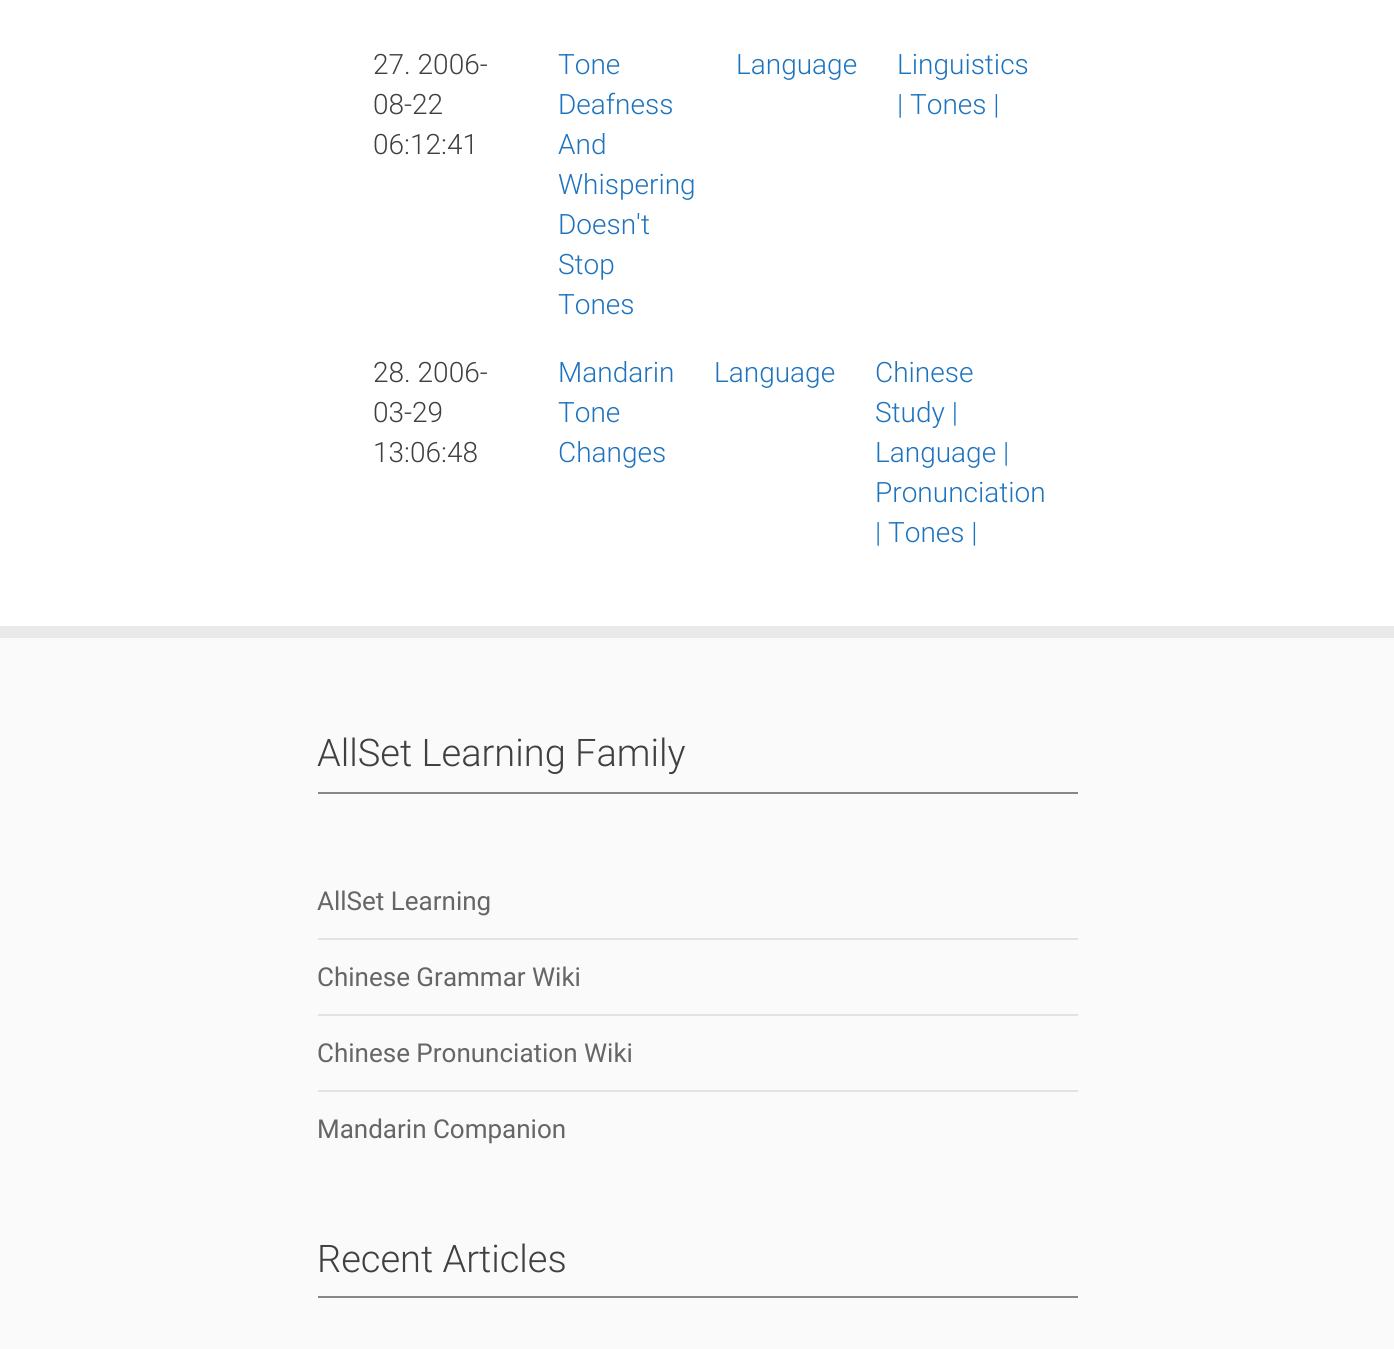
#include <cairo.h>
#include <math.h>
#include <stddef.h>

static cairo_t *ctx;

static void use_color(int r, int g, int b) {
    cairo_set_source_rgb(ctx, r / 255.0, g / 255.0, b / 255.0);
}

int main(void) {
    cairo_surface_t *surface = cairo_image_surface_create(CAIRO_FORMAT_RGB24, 1394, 1349);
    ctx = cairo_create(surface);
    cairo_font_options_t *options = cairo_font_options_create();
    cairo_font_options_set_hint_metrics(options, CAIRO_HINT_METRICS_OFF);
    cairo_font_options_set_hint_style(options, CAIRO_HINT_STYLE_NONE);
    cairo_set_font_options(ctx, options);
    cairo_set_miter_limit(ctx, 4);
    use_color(255, 255, 255);
    cairo_paint(ctx);
    cairo_select_font_face(ctx, "Roboto Light", CAIRO_FONT_SLANT_NORMAL, CAIRO_FONT_WEIGHT_NORMAL);
    cairo_set_font_size(ctx, 28);
    use_color(64, 64, 64);
    cairo_move_to(ctx, 373, 74);
    cairo_show_text(ctx, "27. 2006-");
    cairo_move_to(ctx, 373, 114);
    cairo_show_text(ctx, "08-22");
    cairo_move_to(ctx, 373, 154);
    cairo_show_text(ctx, "06:12:41");
    use_color(30, 115, 190);
    cairo_move_to(ctx, 558, 74);
    cairo_show_text(ctx, "Tone");
    cairo_move_to(ctx, 558, 114);
    cairo_show_text(ctx, "Deafness");
    cairo_move_to(ctx, 558, 154);
    cairo_show_text(ctx, "And");
    cairo_move_to(ctx, 558, 194);
    cairo_show_text(ctx, "Whispering");
    cairo_move_to(ctx, 558, 234);
    cairo_show_text(ctx, "Doesn't");
    cairo_move_to(ctx, 558, 274);
    cairo_show_text(ctx, "Stop");
    cairo_move_to(ctx, 558, 314);
    cairo_show_text(ctx, "Tones");
    cairo_move_to(ctx, 736, 74);
    cairo_show_text(ctx, "Language");
    cairo_move_to(ctx, 897, 74);
    cairo_show_text(ctx, "Linguistics");
    cairo_move_to(ctx, 897, 114);
    cairo_show_text(ctx, "| Tones |");
    use_color(64, 64, 64);
    cairo_move_to(ctx, 373, 382);
    cairo_show_text(ctx, "28. 2006-");
    cairo_move_to(ctx, 373, 422);
    cairo_show_text(ctx, "03-29");
    cairo_move_to(ctx, 373, 462);
    cairo_show_text(ctx, "13:06:48");
    use_color(30, 115, 190);
    cairo_move_to(ctx, 558, 382);
    cairo_show_text(ctx, "Mandarin");
    cairo_move_to(ctx, 558, 422);
    cairo_show_text(ctx, "Tone");
    cairo_move_to(ctx, 558, 462);
    cairo_show_text(ctx, "Changes");
    cairo_move_to(ctx, 714, 382);
    cairo_show_text(ctx, "Language");
    cairo_move_to(ctx, 875, 382);
    cairo_show_text(ctx, "Chinese");
    cairo_move_to(ctx, 875, 422);
    cairo_show_text(ctx, "Study |");
    cairo_move_to(ctx, 875, 462);
    cairo_show_text(ctx, "Language |");
    cairo_move_to(ctx, 875, 502);
    cairo_show_text(ctx, "Pronunciation");
    cairo_move_to(ctx, 875, 542);
    cairo_show_text(ctx, "| Tones |");
    use_color(250, 250, 250);
    cairo_rectangle(ctx, 0, 638, 1394, 711);
    cairo_fill(ctx);
    use_color(233, 233, 233);
    cairo_rectangle(ctx, 0, 626, 1394, 12);
    cairo_fill(ctx);
    use_color(136, 136, 136);
    cairo_rectangle(ctx, 318, 792, 760, 2);
    cairo_fill(ctx);
    cairo_set_font_size(ctx, 38);
    use_color(64, 64, 64);
    cairo_move_to(ctx, 317, 766);
    cairo_show_text(ctx, "AllSet Learning Family");
    use_color(226, 226, 226);
    cairo_rectangle(ctx, 318, 938, 760, 2);
    cairo_fill(ctx);
    cairo_select_font_face(ctx, "Roboto", CAIRO_FONT_SLANT_NORMAL, CAIRO_FONT_WEIGHT_NORMAL);
    cairo_set_font_size(ctx, 26);
    use_color(102, 102, 102);
    cairo_move_to(ctx, 317, 910);
    cairo_show_text(ctx, "AllSet Learning");
    use_color(226, 226, 226);
    cairo_rectangle(ctx, 318, 1014, 760, 2);
    cairo_fill(ctx);
    use_color(102, 102, 102);
    cairo_move_to(ctx, 317, 986);
    cairo_show_text(ctx, "Chinese Grammar Wiki");
    use_color(226, 226, 226);
    cairo_rectangle(ctx, 318, 1090, 760, 2);
    cairo_fill(ctx);
    use_color(102, 102, 102);
    cairo_move_to(ctx, 317, 1062);
    cairo_show_text(ctx, "Chinese Pronunciation Wiki");
    cairo_move_to(ctx, 317, 1138);
    cairo_show_text(ctx, "Mandarin Companion");
    use_color(136, 136, 136);
    cairo_rectangle(ctx, 318, 1296, 760, 2);
    cairo_fill(ctx);
    cairo_select_font_face(ctx, "Roboto Light", CAIRO_FONT_SLANT_NORMAL, CAIRO_FONT_WEIGHT_NORMAL);
    cairo_set_font_size(ctx, 38);
    use_color(64, 64, 64);
    cairo_move_to(ctx, 317, 1272);
    cairo_show_text(ctx, "Recent Articles");
    cairo_surface_write_to_png(surface, "result.png");
    cairo_font_options_destroy(options);
    cairo_destroy(ctx);
    cairo_surface_destroy(surface);
    return 0;
}
